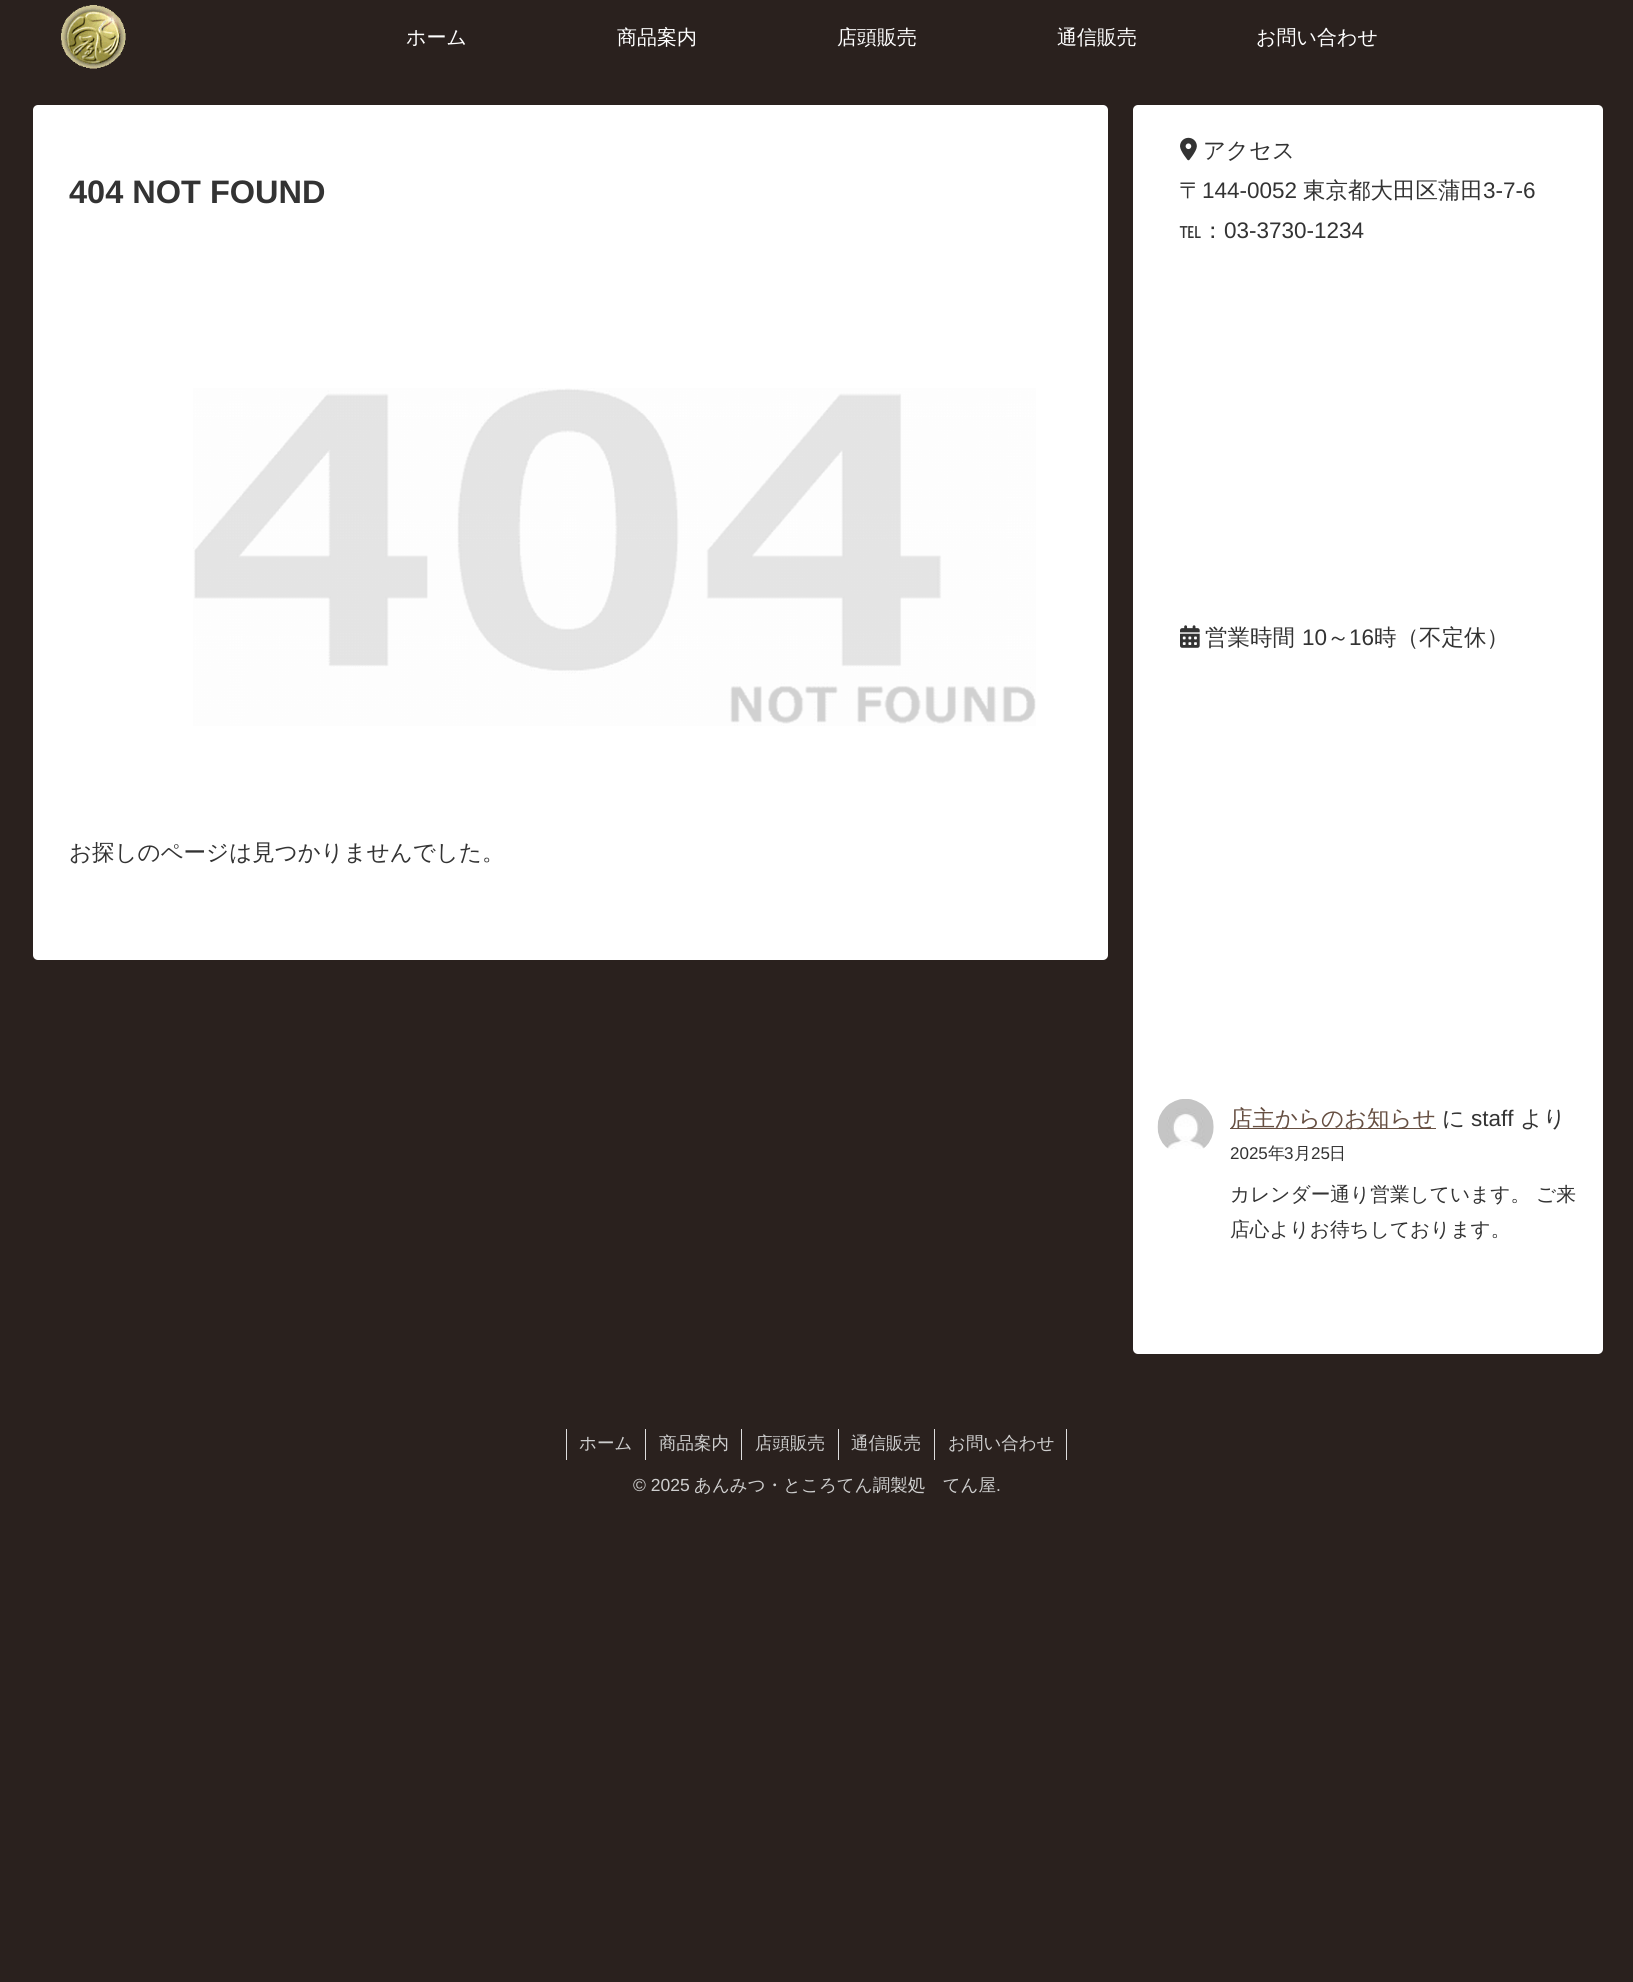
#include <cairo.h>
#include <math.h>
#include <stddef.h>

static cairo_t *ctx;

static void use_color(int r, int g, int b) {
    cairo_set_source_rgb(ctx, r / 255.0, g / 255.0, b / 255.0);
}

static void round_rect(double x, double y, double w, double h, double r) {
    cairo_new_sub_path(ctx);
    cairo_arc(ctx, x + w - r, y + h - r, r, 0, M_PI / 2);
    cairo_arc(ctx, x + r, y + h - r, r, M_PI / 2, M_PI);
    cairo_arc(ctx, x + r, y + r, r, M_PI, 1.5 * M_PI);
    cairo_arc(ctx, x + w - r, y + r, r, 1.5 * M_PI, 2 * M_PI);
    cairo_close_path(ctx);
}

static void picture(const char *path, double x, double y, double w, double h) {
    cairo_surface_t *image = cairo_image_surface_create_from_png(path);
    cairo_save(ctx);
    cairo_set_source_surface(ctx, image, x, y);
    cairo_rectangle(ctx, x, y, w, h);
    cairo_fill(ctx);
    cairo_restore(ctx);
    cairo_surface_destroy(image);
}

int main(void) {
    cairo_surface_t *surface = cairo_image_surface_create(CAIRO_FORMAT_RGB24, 1633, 1982);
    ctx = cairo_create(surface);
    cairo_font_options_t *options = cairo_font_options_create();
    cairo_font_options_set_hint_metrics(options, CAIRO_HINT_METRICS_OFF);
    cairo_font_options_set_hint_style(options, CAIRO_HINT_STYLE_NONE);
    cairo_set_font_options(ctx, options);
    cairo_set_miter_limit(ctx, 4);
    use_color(42, 33, 30);
    cairo_paint(ctx);
    picture("img1.png", 61, 5, 65, 64);
    cairo_select_font_face(ctx, "WenQuanYi Zen Hei Medium", CAIRO_FONT_SLANT_NORMAL, CAIRO_FONT_WEIGHT_NORMAL);
    cairo_set_font_size(ctx, 20);
    use_color(255, 255, 255);
    cairo_move_to(ctx, 406, 44);
    cairo_show_text(ctx, "ホーム");
    cairo_move_to(ctx, 617, 44);
    cairo_show_text(ctx, "商品案内");
    cairo_move_to(ctx, 837, 44);
    cairo_show_text(ctx, "店頭販売");
    cairo_move_to(ctx, 1057, 44);
    cairo_show_text(ctx, "通信販売");
    cairo_move_to(ctx, 1256, 44);
    cairo_show_text(ctx, "お問い合わせ");
    round_rect(33, 105, 1075, 855, 5);
    cairo_fill(ctx);
    cairo_select_font_face(ctx, "Liberation Sans", CAIRO_FONT_SLANT_NORMAL, CAIRO_FONT_WEIGHT_BOLD);
    cairo_set_font_size(ctx, 32.5);
    use_color(51, 51, 51);
    cairo_move_to(ctx, 69, 203);
    cairo_show_text(ctx, "404 NOT FOUND");
    picture("img2.png", 193, 388, 843, 338);
    cairo_select_font_face(ctx, "WenQuanYi Zen Hei Medium", CAIRO_FONT_SLANT_NORMAL, CAIRO_FONT_WEIGHT_NORMAL);
    cairo_set_font_size(ctx, 22.5);
    cairo_move_to(ctx, 69, 860);
    cairo_show_text(ctx, "お探しのページは見つかりませんでした。");
    use_color(255, 255, 255);
    round_rect(1133, 105, 470, 1249, 5);
    cairo_fill(ctx);
    picture("img3.png", 1180, 137, 17, 24);
    use_color(51, 51, 51);
    cairo_move_to(ctx, 1203, 158);
    cairo_show_text(ctx, "アクセス");
    cairo_move_to(ctx, 1179, 198);
    cairo_show_text(ctx, "〒");
    cairo_select_font_face(ctx, "Liberation Sans", CAIRO_FONT_SLANT_NORMAL, CAIRO_FONT_WEIGHT_NORMAL);
    cairo_move_to(ctx, 1202, 198);
    cairo_show_text(ctx, "144-0052");
    cairo_select_font_face(ctx, "WenQuanYi Zen Hei Medium", CAIRO_FONT_SLANT_NORMAL, CAIRO_FONT_WEIGHT_NORMAL);
    cairo_move_to(ctx, 1303, 198);
    cairo_show_text(ctx, "東京都大田区蒲田");
    cairo_select_font_face(ctx, "Liberation Sans", CAIRO_FONT_SLANT_NORMAL, CAIRO_FONT_WEIGHT_NORMAL);
    cairo_move_to(ctx, 1483, 198);
    cairo_show_text(ctx, "3-7-6");
    cairo_select_font_face(ctx, "WenQuanYi Zen Hei Medium", CAIRO_FONT_SLANT_NORMAL, CAIRO_FONT_WEIGHT_NORMAL);
    cairo_move_to(ctx, 1179, 238);
    cairo_show_text(ctx, "℡：");
    cairo_select_font_face(ctx, "Liberation Sans", CAIRO_FONT_SLANT_NORMAL, CAIRO_FONT_WEIGHT_NORMAL);
    cairo_move_to(ctx, 1224, 238);
    cairo_show_text(ctx, "03-3730-1234");
    picture("img4.png", 1180, 625, 20, 23);
    cairo_select_font_face(ctx, "WenQuanYi Zen Hei Medium", CAIRO_FONT_SLANT_NORMAL, CAIRO_FONT_WEIGHT_NORMAL);
    cairo_move_to(ctx, 1205, 645);
    cairo_show_text(ctx, "営業時間");
    cairo_select_font_face(ctx, "Liberation Sans", CAIRO_FONT_SLANT_NORMAL, CAIRO_FONT_WEIGHT_NORMAL);
    cairo_move_to(ctx, 1302, 645);
    cairo_show_text(ctx, "10");
    cairo_select_font_face(ctx, "WenQuanYi Zen Hei Medium", CAIRO_FONT_SLANT_NORMAL, CAIRO_FONT_WEIGHT_NORMAL);
    cairo_move_to(ctx, 1327, 645);
    cairo_show_text(ctx, "～");
    cairo_select_font_face(ctx, "Liberation Sans", CAIRO_FONT_SLANT_NORMAL, CAIRO_FONT_WEIGHT_NORMAL);
    cairo_move_to(ctx, 1349, 645);
    cairo_show_text(ctx, "16");
    cairo_select_font_face(ctx, "WenQuanYi Zen Hei Medium", CAIRO_FONT_SLANT_NORMAL, CAIRO_FONT_WEIGHT_NORMAL);
    cairo_move_to(ctx, 1374, 645);
    cairo_show_text(ctx, "時（不定休）");
    picture("img5.png", 1157, 1099, 57, 50);
    use_color(102, 79, 66);
    cairo_rectangle(ctx, 1230, 1128, 206, 1);
    cairo_fill(ctx);
    cairo_move_to(ctx, 1230, 1126);
    cairo_show_text(ctx, "店主からのお知らせ");
    use_color(51, 51, 51);
    cairo_move_to(ctx, 1442, 1126);
    cairo_show_text(ctx, "に");
    cairo_select_font_face(ctx, "Liberation Sans", CAIRO_FONT_SLANT_NORMAL, CAIRO_FONT_WEIGHT_NORMAL);
    cairo_move_to(ctx, 1471, 1126);
    cairo_show_text(ctx, "staff");
    cairo_select_font_face(ctx, "WenQuanYi Zen Hei Medium", CAIRO_FONT_SLANT_NORMAL, CAIRO_FONT_WEIGHT_NORMAL);
    cairo_move_to(ctx, 1520, 1126);
    cairo_show_text(ctx, "より");
    cairo_select_font_face(ctx, "Liberation Sans", CAIRO_FONT_SLANT_NORMAL, CAIRO_FONT_WEIGHT_NORMAL);
    cairo_set_font_size(ctx, 17);
    cairo_move_to(ctx, 1230, 1159);
    cairo_show_text(ctx, "2025");
    cairo_select_font_face(ctx, "WenQuanYi Zen Hei Medium", CAIRO_FONT_SLANT_NORMAL, CAIRO_FONT_WEIGHT_NORMAL);
    cairo_move_to(ctx, 1268, 1159);
    cairo_show_text(ctx, "年");
    cairo_select_font_face(ctx, "Liberation Sans", CAIRO_FONT_SLANT_NORMAL, CAIRO_FONT_WEIGHT_NORMAL);
    cairo_move_to(ctx, 1284, 1159);
    cairo_show_text(ctx, "3");
    cairo_select_font_face(ctx, "WenQuanYi Zen Hei Medium", CAIRO_FONT_SLANT_NORMAL, CAIRO_FONT_WEIGHT_NORMAL);
    cairo_move_to(ctx, 1294, 1159);
    cairo_show_text(ctx, "月");
    cairo_select_font_face(ctx, "Liberation Sans", CAIRO_FONT_SLANT_NORMAL, CAIRO_FONT_WEIGHT_NORMAL);
    cairo_move_to(ctx, 1311, 1159);
    cairo_show_text(ctx, "25");
    cairo_select_font_face(ctx, "WenQuanYi Zen Hei Medium", CAIRO_FONT_SLANT_NORMAL, CAIRO_FONT_WEIGHT_NORMAL);
    cairo_move_to(ctx, 1329, 1159);
    cairo_show_text(ctx, "日");
    cairo_set_font_size(ctx, 19.7);
    cairo_move_to(ctx, 1230, 1201);
    cairo_show_text(ctx, "カレンダー通り営業しています。 ご来");
    cairo_move_to(ctx, 1230, 1236);
    cairo_show_text(ctx, "店心よりお待ちしております。");
    use_color(221, 221, 221);
    cairo_rectangle(ctx, 566, 1429, 1, 31);
    cairo_fill(ctx);
    cairo_set_font_size(ctx, 17.5);
    use_color(206, 206, 206);
    cairo_move_to(ctx, 579, 1449);
    cairo_show_text(ctx, "ホーム");
    use_color(221, 221, 221);
    cairo_rectangle(ctx, 645, 1429, 1, 31);
    cairo_fill(ctx);
    use_color(206, 206, 206);
    cairo_move_to(ctx, 659, 1449);
    cairo_show_text(ctx, "商品案内");
    use_color(221, 221, 221);
    cairo_rectangle(ctx, 741, 1429, 1, 31);
    cairo_fill(ctx);
    use_color(206, 206, 206);
    cairo_move_to(ctx, 755, 1449);
    cairo_show_text(ctx, "店頭販売");
    use_color(221, 221, 221);
    cairo_rectangle(ctx, 838, 1429, 1, 31);
    cairo_fill(ctx);
    use_color(206, 206, 206);
    cairo_move_to(ctx, 851, 1449);
    cairo_show_text(ctx, "通信販売");
    use_color(221, 221, 221);
    cairo_rectangle(ctx, 1066, 1429, 1, 31);
    cairo_fill(ctx);
    cairo_rectangle(ctx, 934, 1429, 1, 31);
    cairo_fill(ctx);
    use_color(206, 206, 206);
    cairo_move_to(ctx, 948, 1449);
    cairo_show_text(ctx, "お問い合わせ");
    cairo_select_font_face(ctx, "Liberation Sans", CAIRO_FONT_SLANT_NORMAL, CAIRO_FONT_WEIGHT_NORMAL);
    cairo_move_to(ctx, 633, 1491);
    cairo_show_text(ctx, "© 2025");
    cairo_select_font_face(ctx, "WenQuanYi Zen Hei Medium", CAIRO_FONT_SLANT_NORMAL, CAIRO_FONT_WEIGHT_NORMAL);
    cairo_move_to(ctx, 694, 1491);
    cairo_show_text(ctx, "あんみつ・ところてん調製処　てん屋");
    cairo_select_font_face(ctx, "Liberation Sans", CAIRO_FONT_SLANT_NORMAL, CAIRO_FONT_WEIGHT_NORMAL);
    cairo_move_to(ctx, 996, 1491);
    cairo_show_text(ctx, ".");
    cairo_surface_write_to_png(surface, "result.png");
    cairo_font_options_destroy(options);
    cairo_destroy(ctx);
    cairo_surface_destroy(surface);
    return 0;
}
